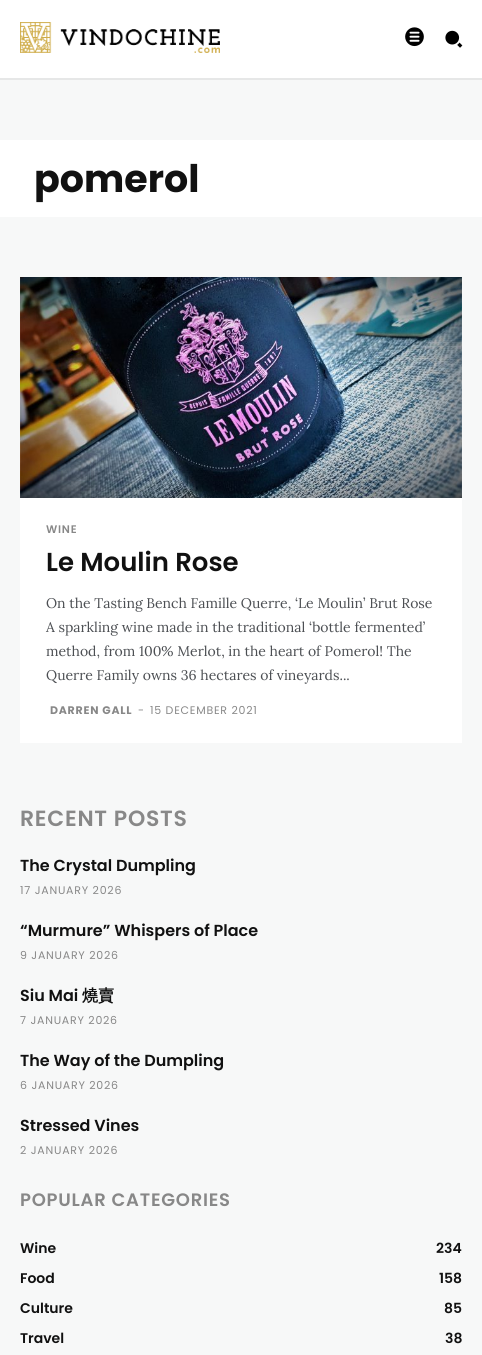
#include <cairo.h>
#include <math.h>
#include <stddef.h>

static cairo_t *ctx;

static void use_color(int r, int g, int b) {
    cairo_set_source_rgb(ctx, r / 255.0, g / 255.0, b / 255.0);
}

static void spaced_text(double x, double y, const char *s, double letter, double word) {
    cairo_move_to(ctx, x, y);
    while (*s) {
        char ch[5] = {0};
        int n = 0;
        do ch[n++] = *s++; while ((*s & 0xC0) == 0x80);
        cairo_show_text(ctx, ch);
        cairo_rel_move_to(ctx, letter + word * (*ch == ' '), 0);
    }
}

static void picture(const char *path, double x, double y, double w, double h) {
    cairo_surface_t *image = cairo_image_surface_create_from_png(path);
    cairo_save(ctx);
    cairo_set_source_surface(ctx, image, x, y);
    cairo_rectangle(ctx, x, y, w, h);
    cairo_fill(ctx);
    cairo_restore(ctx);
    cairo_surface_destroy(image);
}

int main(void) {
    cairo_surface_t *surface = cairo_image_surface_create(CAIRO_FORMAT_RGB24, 482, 1355);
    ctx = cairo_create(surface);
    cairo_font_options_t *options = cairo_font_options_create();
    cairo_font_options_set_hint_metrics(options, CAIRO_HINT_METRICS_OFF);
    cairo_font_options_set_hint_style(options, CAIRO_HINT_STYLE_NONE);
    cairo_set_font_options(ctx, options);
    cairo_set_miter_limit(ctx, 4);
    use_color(247, 248, 248);
    cairo_paint(ctx);
    use_color(230, 231, 231);
    cairo_rectangle(ctx, 0, 78, 482, 2);
    cairo_fill(ctx);
    use_color(255, 255, 255);
    cairo_rectangle(ctx, 0, 0, 482, 78);
    cairo_fill(ctx);
    picture("img1.png", 20, 22, 200, 31);
    picture("img2.png", 405, 27, 19, 20);
    picture("img3.png", 445, 30, 18, 18);
    cairo_rectangle(ctx, 0, 140, 482, 77);
    cairo_fill(ctx);
    cairo_select_font_face(ctx, "Poppins", CAIRO_FONT_SLANT_NORMAL, CAIRO_FONT_WEIGHT_BOLD);
    cairo_set_font_size(ctx, 38);
    use_color(17, 17, 17);
    cairo_move_to(ctx, 34, 192);
    cairo_show_text(ctx, "pomerol");
    picture("img4.png", 20, 277, 442, 221);
    use_color(255, 255, 255);
    cairo_rectangle(ctx, 20, 498, 442, 245);
    cairo_fill(ctx);
    cairo_select_font_face(ctx, "Poppins SemiBold", CAIRO_FONT_SLANT_NORMAL, CAIRO_FONT_WEIGHT_NORMAL);
    cairo_set_font_size(ctx, 11);
    use_color(136, 136, 136);
    spaced_text(46, 533, "WINE", 0.75, 0);
    cairo_set_font_size(ctx, 26);
    use_color(17, 17, 17);
    cairo_move_to(ctx, 46, 571);
    cairo_show_text(ctx, "Le Moulin Rose");
    cairo_select_font_face(ctx, "Lora", CAIRO_FONT_SLANT_NORMAL, CAIRO_FONT_WEIGHT_NORMAL);
    cairo_set_font_size(ctx, 14);
    use_color(76, 79, 83);
    cairo_move_to(ctx, 46, 608);
    cairo_show_text(ctx, "On the Tasting Bench Famille Querre, ‘Le Moulin’ Brut Rose");
    cairo_move_to(ctx, 46, 632);
    cairo_show_text(ctx, "A sparkling wine made in the traditional ‘bottle fermented’");
    cairo_move_to(ctx, 46, 656);
    cairo_show_text(ctx, "method, from 100% Merlot, in the heart of Pomerol! The");
    cairo_move_to(ctx, 46, 680);
    cairo_show_text(ctx, "Querre Family owns 36 hectares of vineyards...");
    cairo_select_font_face(ctx, "Poppins", CAIRO_FONT_SLANT_NORMAL, CAIRO_FONT_WEIGHT_BOLD);
    cairo_set_font_size(ctx, 11);
    use_color(136, 136, 136);
    spaced_text(50, 714, "DARREN GALL", 0.75, 0);
    cairo_select_font_face(ctx, "Poppins", CAIRO_FONT_SLANT_NORMAL, CAIRO_FONT_WEIGHT_NORMAL);
    spaced_text(138, 714, "-", 0.75, 0);
    spaced_text(150, 714, "15 DECEMBER 2021", 0.75, 0);
    cairo_select_font_face(ctx, "Poppins SemiBold", CAIRO_FONT_SLANT_NORMAL, CAIRO_FONT_WEIGHT_NORMAL);
    cairo_set_font_size(ctx, 22);
    spaced_text(20, 826, "RECENT POSTS", 0.75, 0);
    cairo_set_font_size(ctx, 16);
    use_color(17, 17, 17);
    cairo_move_to(ctx, 20, 871);
    cairo_show_text(ctx, "The Crystal Dumpling");
    cairo_select_font_face(ctx, "Poppins", CAIRO_FONT_SLANT_NORMAL, CAIRO_FONT_WEIGHT_NORMAL);
    cairo_set_font_size(ctx, 11);
    use_color(136, 136, 136);
    spaced_text(20, 894, "17 JANUARY 2026", 0.75, 0);
    cairo_select_font_face(ctx, "Poppins SemiBold", CAIRO_FONT_SLANT_NORMAL, CAIRO_FONT_WEIGHT_NORMAL);
    cairo_set_font_size(ctx, 16);
    use_color(17, 17, 17);
    cairo_move_to(ctx, 20, 936);
    cairo_show_text(ctx, "“Murmure” Whispers of Place");
    cairo_select_font_face(ctx, "Poppins", CAIRO_FONT_SLANT_NORMAL, CAIRO_FONT_WEIGHT_NORMAL);
    cairo_set_font_size(ctx, 11);
    use_color(136, 136, 136);
    spaced_text(20, 959, "9 JANUARY 2026", 0.75, 0);
    cairo_select_font_face(ctx, "Poppins SemiBold", CAIRO_FONT_SLANT_NORMAL, CAIRO_FONT_WEIGHT_NORMAL);
    cairo_set_font_size(ctx, 16);
    use_color(17, 17, 17);
    cairo_move_to(ctx, 20, 1001);
    cairo_show_text(ctx, "Siu Mai");
    cairo_select_font_face(ctx, "WenQuanYi Zen Hei", CAIRO_FONT_SLANT_NORMAL, CAIRO_FONT_WEIGHT_BOLD);
    cairo_move_to(ctx, 82, 1001);
    cairo_show_text(ctx, "燒賣");
    cairo_select_font_face(ctx, "Poppins", CAIRO_FONT_SLANT_NORMAL, CAIRO_FONT_WEIGHT_NORMAL);
    cairo_set_font_size(ctx, 11);
    use_color(136, 136, 136);
    spaced_text(20, 1024, "7 JANUARY 2026", 0.75, 0);
    cairo_select_font_face(ctx, "Poppins SemiBold", CAIRO_FONT_SLANT_NORMAL, CAIRO_FONT_WEIGHT_NORMAL);
    cairo_set_font_size(ctx, 16);
    use_color(17, 17, 17);
    cairo_move_to(ctx, 20, 1066);
    cairo_show_text(ctx, "The Way of the Dumpling");
    cairo_select_font_face(ctx, "Poppins", CAIRO_FONT_SLANT_NORMAL, CAIRO_FONT_WEIGHT_NORMAL);
    cairo_set_font_size(ctx, 11);
    use_color(136, 136, 136);
    spaced_text(20, 1089, "6 JANUARY 2026", 0.75, 0);
    cairo_select_font_face(ctx, "Poppins SemiBold", CAIRO_FONT_SLANT_NORMAL, CAIRO_FONT_WEIGHT_NORMAL);
    cairo_set_font_size(ctx, 16);
    use_color(17, 17, 17);
    cairo_move_to(ctx, 20, 1131);
    cairo_show_text(ctx, "Stressed Vines");
    cairo_select_font_face(ctx, "Poppins", CAIRO_FONT_SLANT_NORMAL, CAIRO_FONT_WEIGHT_NORMAL);
    cairo_set_font_size(ctx, 11);
    use_color(136, 136, 136);
    spaced_text(20, 1154, "2 JANUARY 2026", 0.75, 0);
    cairo_select_font_face(ctx, "Poppins SemiBold", CAIRO_FONT_SLANT_NORMAL, CAIRO_FONT_WEIGHT_NORMAL);
    cairo_set_font_size(ctx, 18);
    spaced_text(20, 1206, "POPULAR CATEGORIES", 0.75, 0);
    cairo_set_font_size(ctx, 14);
    use_color(17, 17, 17);
    cairo_move_to(ctx, 20, 1253);
    cairo_show_text(ctx, "Wine");
    cairo_move_to(ctx, 436, 1253);
    cairo_show_text(ctx, "234");
    cairo_move_to(ctx, 20, 1283);
    cairo_show_text(ctx, "Food");
    cairo_move_to(ctx, 439, 1283);
    cairo_show_text(ctx, "158");
    cairo_move_to(ctx, 20, 1313);
    cairo_show_text(ctx, "Culture");
    cairo_move_to(ctx, 444, 1313);
    cairo_show_text(ctx, "85");
    cairo_move_to(ctx, 20, 1343);
    cairo_show_text(ctx, "Travel");
    cairo_move_to(ctx, 445, 1343);
    cairo_show_text(ctx, "38");
    cairo_surface_write_to_png(surface, "result.png");
    cairo_font_options_destroy(options);
    cairo_destroy(ctx);
    cairo_surface_destroy(surface);
    return 0;
}
